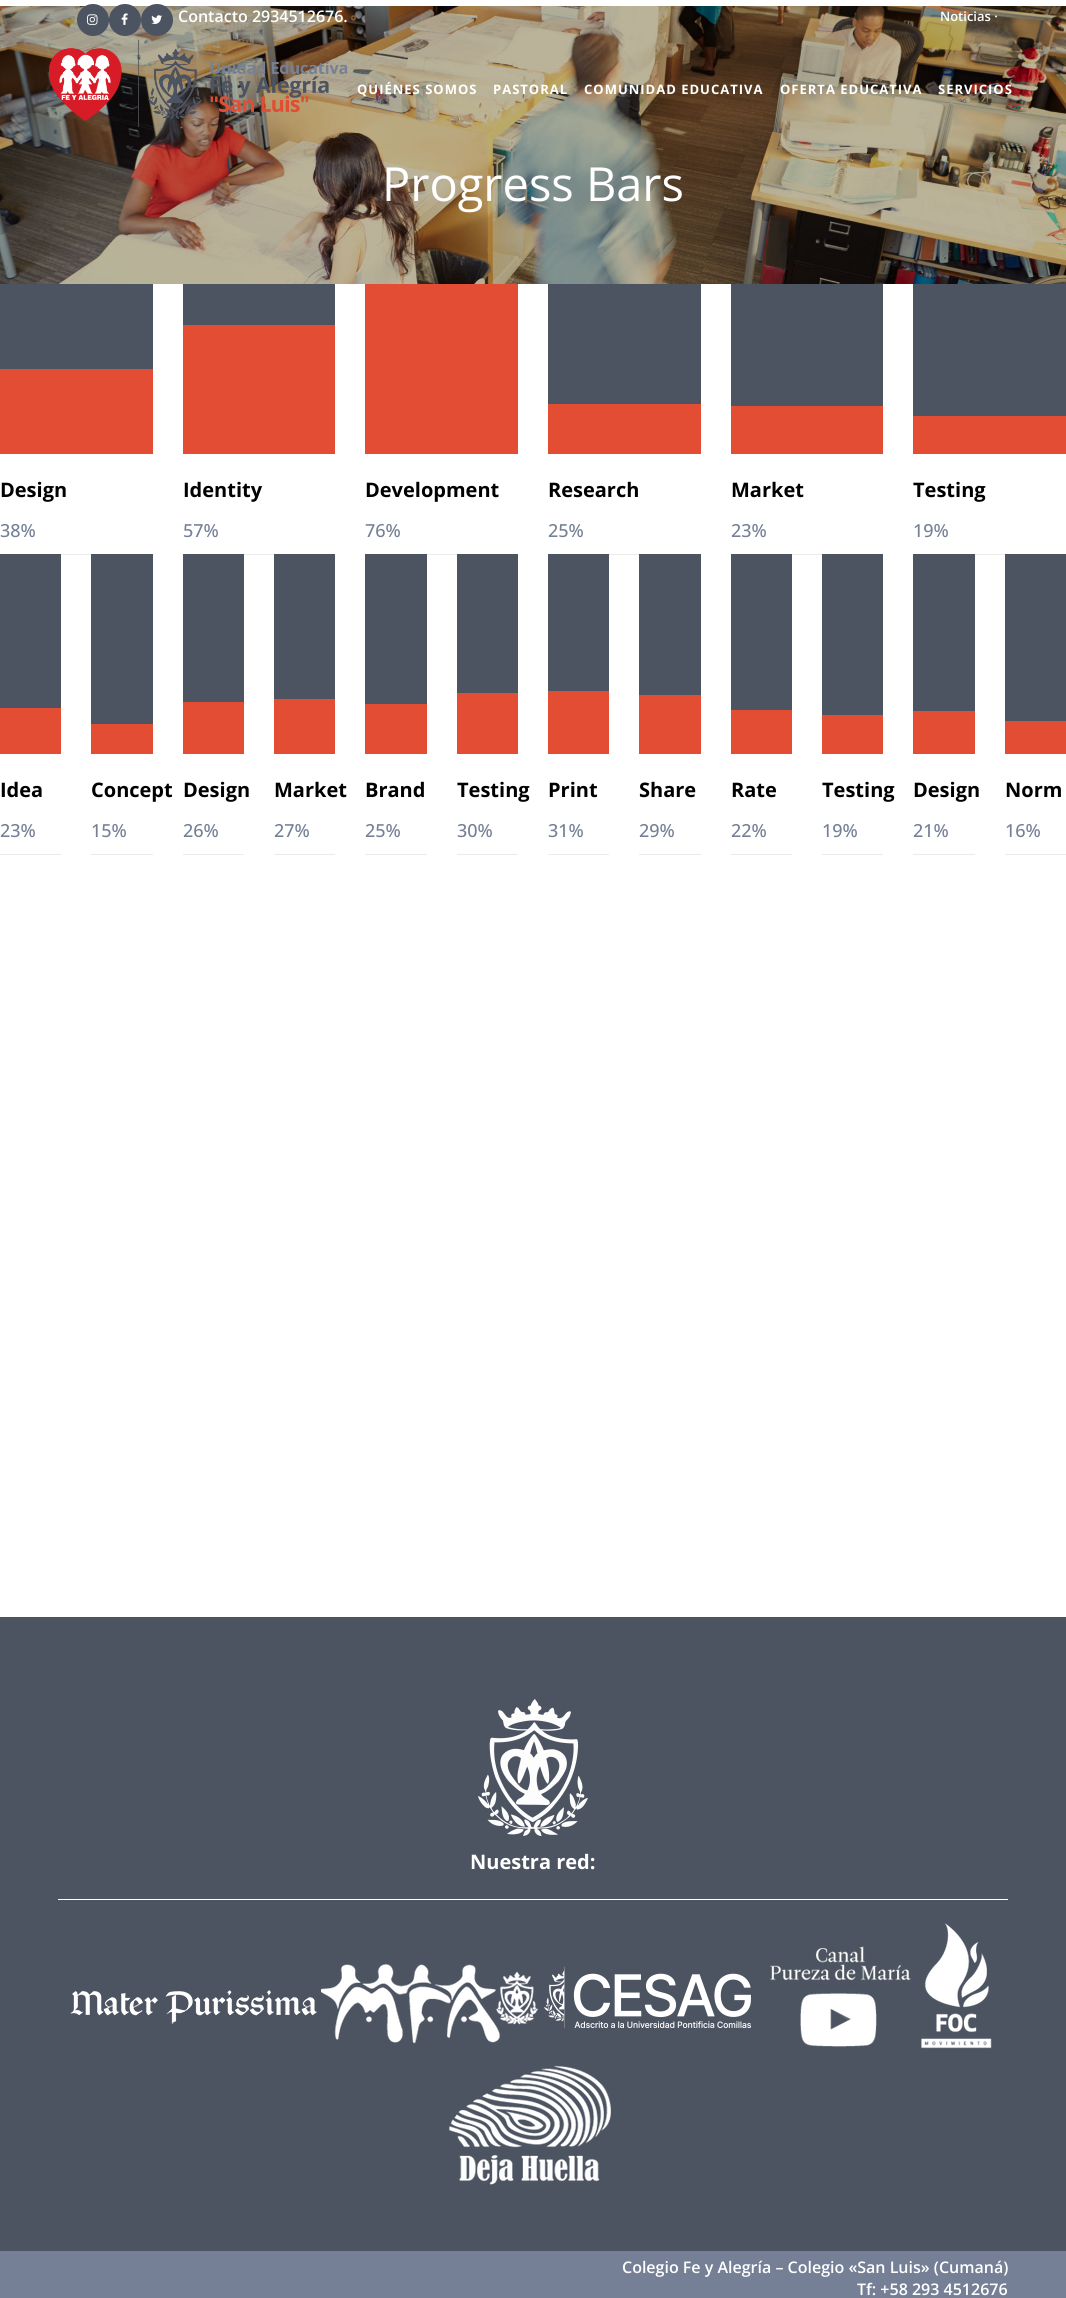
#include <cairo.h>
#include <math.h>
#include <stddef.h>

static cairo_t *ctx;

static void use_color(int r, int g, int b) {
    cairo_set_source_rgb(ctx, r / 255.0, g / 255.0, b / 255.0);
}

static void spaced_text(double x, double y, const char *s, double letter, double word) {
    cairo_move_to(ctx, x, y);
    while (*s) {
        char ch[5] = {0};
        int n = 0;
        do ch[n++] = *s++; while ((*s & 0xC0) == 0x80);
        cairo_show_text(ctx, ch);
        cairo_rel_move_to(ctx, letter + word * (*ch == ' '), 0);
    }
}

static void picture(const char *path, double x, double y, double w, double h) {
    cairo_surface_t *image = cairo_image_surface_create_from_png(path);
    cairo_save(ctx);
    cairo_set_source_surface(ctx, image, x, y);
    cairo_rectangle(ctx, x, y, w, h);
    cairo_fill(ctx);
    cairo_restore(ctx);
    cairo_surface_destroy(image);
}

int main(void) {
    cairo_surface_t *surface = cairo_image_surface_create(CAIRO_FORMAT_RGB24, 1066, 2298);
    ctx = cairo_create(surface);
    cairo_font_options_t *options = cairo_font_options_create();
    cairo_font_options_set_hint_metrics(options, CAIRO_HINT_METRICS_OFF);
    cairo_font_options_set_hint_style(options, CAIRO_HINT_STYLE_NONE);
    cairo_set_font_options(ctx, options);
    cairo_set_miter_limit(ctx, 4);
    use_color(255, 255, 255);
    cairo_paint(ctx);
    picture("img5.png", 0, 6, 1066, 278);
    use_color(76, 83, 97);
    cairo_arc(ctx, 93, 20, 16, 0, 2 * M_PI);
    cairo_fill(ctx);
    picture("img1.png", 87, 14, 11, 11);
    cairo_arc(ctx, 125, 20, 16, 0, 2 * M_PI);
    cairo_fill(ctx);
    picture("img2.png", 121, 13, 7, 12);
    cairo_arc(ctx, 157, 20, 16, 0, 2 * M_PI);
    cairo_fill(ctx);
    picture("img3.png", 151, 15, 11, 9);
    cairo_select_font_face(ctx, "Open Sans SemiBold", CAIRO_FONT_SLANT_NORMAL, CAIRO_FONT_WEIGHT_NORMAL);
    cairo_set_font_size(ctx, 16);
    use_color(255, 255, 255);
    cairo_move_to(ctx, 178, 22);
    cairo_show_text(ctx, "Contacto 2934512676.");
    cairo_set_font_size(ctx, 13);
    cairo_move_to(ctx, 940, 21);
    cairo_show_text(ctx, "Noticias ·");
    picture("img4.png", 49, 39, 299, 89);
    cairo_select_font_face(ctx, "Open Sans", CAIRO_FONT_SLANT_NORMAL, CAIRO_FONT_WEIGHT_BOLD);
    spaced_text(357, 94, "QUIÉNES SOMOS", 1, 0);
    spaced_text(493, 94, "PASTORAL", 1, 0);
    spaced_text(584, 94, "COMUNIDAD EDUCATIVA", 1, 0);
    spaced_text(780, 94, "OFERTA EDUCATIVA", 1, 0);
    spaced_text(938, 94, "SERVICIOS", 1, 0);
    cairo_select_font_face(ctx, "Open Sans", CAIRO_FONT_SLANT_NORMAL, CAIRO_FONT_WEIGHT_NORMAL);
    cairo_set_font_size(ctx, 47);
    cairo_move_to(ctx, 382, 201);
    cairo_show_text(ctx, "Progress Bars");
    use_color(76, 83, 97);
    cairo_rectangle(ctx, 0, 284, 153, 85);
    cairo_fill(ctx);
    use_color(226, 77, 51);
    cairo_rectangle(ctx, 0, 369, 153, 85);
    cairo_fill(ctx);
    cairo_select_font_face(ctx, "Open Sans", CAIRO_FONT_SLANT_NORMAL, CAIRO_FONT_WEIGHT_BOLD);
    cairo_set_font_size(ctx, 20);
    use_color(0, 0, 0);
    cairo_move_to(ctx, 0, 497);
    cairo_show_text(ctx, "Design");
    cairo_select_font_face(ctx, "Open Sans Medium", CAIRO_FONT_SLANT_NORMAL, CAIRO_FONT_WEIGHT_NORMAL);
    cairo_set_font_size(ctx, 18);
    use_color(117, 128, 150);
    cairo_move_to(ctx, 0, 537);
    cairo_show_text(ctx, "38%");
    use_color(235, 235, 235);
    cairo_rectangle(ctx, 61, 554, 30, 1);
    cairo_fill(ctx);
    use_color(76, 83, 97);
    cairo_rectangle(ctx, 183, 284, 152, 41);
    cairo_fill(ctx);
    use_color(226, 77, 51);
    cairo_rectangle(ctx, 183, 325, 152, 129);
    cairo_fill(ctx);
    cairo_select_font_face(ctx, "Open Sans", CAIRO_FONT_SLANT_NORMAL, CAIRO_FONT_WEIGHT_BOLD);
    cairo_set_font_size(ctx, 20);
    use_color(0, 0, 0);
    cairo_move_to(ctx, 183, 497);
    cairo_show_text(ctx, "Identity");
    cairo_select_font_face(ctx, "Open Sans Medium", CAIRO_FONT_SLANT_NORMAL, CAIRO_FONT_WEIGHT_NORMAL);
    cairo_set_font_size(ctx, 18);
    use_color(117, 128, 150);
    cairo_move_to(ctx, 183, 537);
    cairo_show_text(ctx, "57%");
    use_color(235, 235, 235);
    cairo_rectangle(ctx, 244, 554, 30, 1);
    cairo_fill(ctx);
    use_color(226, 77, 51);
    cairo_rectangle(ctx, 365, 284, 153, 170);
    cairo_fill(ctx);
    cairo_select_font_face(ctx, "Open Sans", CAIRO_FONT_SLANT_NORMAL, CAIRO_FONT_WEIGHT_BOLD);
    cairo_set_font_size(ctx, 20);
    use_color(0, 0, 0);
    cairo_move_to(ctx, 365, 497);
    cairo_show_text(ctx, "Development");
    cairo_select_font_face(ctx, "Open Sans Medium", CAIRO_FONT_SLANT_NORMAL, CAIRO_FONT_WEIGHT_NORMAL);
    cairo_set_font_size(ctx, 18);
    use_color(117, 128, 150);
    cairo_move_to(ctx, 365, 537);
    cairo_show_text(ctx, "76%");
    use_color(235, 235, 235);
    cairo_rectangle(ctx, 427, 554, 30, 1);
    cairo_fill(ctx);
    use_color(76, 83, 97);
    cairo_rectangle(ctx, 548, 284, 153, 120);
    cairo_fill(ctx);
    use_color(226, 77, 51);
    cairo_rectangle(ctx, 548, 404, 153, 50);
    cairo_fill(ctx);
    cairo_select_font_face(ctx, "Open Sans", CAIRO_FONT_SLANT_NORMAL, CAIRO_FONT_WEIGHT_BOLD);
    cairo_set_font_size(ctx, 20);
    use_color(0, 0, 0);
    cairo_move_to(ctx, 548, 497);
    cairo_show_text(ctx, "Research");
    cairo_select_font_face(ctx, "Open Sans Medium", CAIRO_FONT_SLANT_NORMAL, CAIRO_FONT_WEIGHT_NORMAL);
    cairo_set_font_size(ctx, 18);
    use_color(117, 128, 150);
    cairo_move_to(ctx, 548, 537);
    cairo_show_text(ctx, "25%");
    use_color(235, 235, 235);
    cairo_rectangle(ctx, 609, 554, 30, 1);
    cairo_fill(ctx);
    use_color(76, 83, 97);
    cairo_rectangle(ctx, 731, 284, 152, 122);
    cairo_fill(ctx);
    use_color(226, 77, 51);
    cairo_rectangle(ctx, 731, 406, 152, 48);
    cairo_fill(ctx);
    cairo_select_font_face(ctx, "Open Sans", CAIRO_FONT_SLANT_NORMAL, CAIRO_FONT_WEIGHT_BOLD);
    cairo_set_font_size(ctx, 20);
    use_color(0, 0, 0);
    cairo_move_to(ctx, 731, 497);
    cairo_show_text(ctx, "Market");
    cairo_select_font_face(ctx, "Open Sans Medium", CAIRO_FONT_SLANT_NORMAL, CAIRO_FONT_WEIGHT_NORMAL);
    cairo_set_font_size(ctx, 18);
    use_color(117, 128, 150);
    cairo_move_to(ctx, 731, 537);
    cairo_show_text(ctx, "23%");
    use_color(235, 235, 235);
    cairo_rectangle(ctx, 792, 554, 30, 1);
    cairo_fill(ctx);
    use_color(76, 83, 97);
    cairo_rectangle(ctx, 913, 284, 153, 132);
    cairo_fill(ctx);
    use_color(226, 77, 51);
    cairo_rectangle(ctx, 913, 416, 153, 38);
    cairo_fill(ctx);
    cairo_select_font_face(ctx, "Open Sans", CAIRO_FONT_SLANT_NORMAL, CAIRO_FONT_WEIGHT_BOLD);
    cairo_set_font_size(ctx, 20);
    use_color(0, 0, 0);
    cairo_move_to(ctx, 913, 497);
    cairo_show_text(ctx, "Testing");
    cairo_select_font_face(ctx, "Open Sans Medium", CAIRO_FONT_SLANT_NORMAL, CAIRO_FONT_WEIGHT_NORMAL);
    cairo_set_font_size(ctx, 18);
    use_color(117, 128, 150);
    cairo_move_to(ctx, 913, 537);
    cairo_show_text(ctx, "19%");
    use_color(235, 235, 235);
    cairo_rectangle(ctx, 975, 554, 30, 1);
    cairo_fill(ctx);
    use_color(76, 83, 97);
    cairo_rectangle(ctx, 0, 554, 61, 154);
    cairo_fill(ctx);
    use_color(226, 77, 51);
    cairo_rectangle(ctx, 0, 708, 61, 46);
    cairo_fill(ctx);
    cairo_select_font_face(ctx, "Open Sans", CAIRO_FONT_SLANT_NORMAL, CAIRO_FONT_WEIGHT_BOLD);
    cairo_set_font_size(ctx, 20);
    use_color(0, 0, 0);
    cairo_move_to(ctx, 0, 797);
    cairo_show_text(ctx, "Idea");
    cairo_select_font_face(ctx, "Open Sans Medium", CAIRO_FONT_SLANT_NORMAL, CAIRO_FONT_WEIGHT_NORMAL);
    cairo_set_font_size(ctx, 18);
    use_color(117, 128, 150);
    cairo_move_to(ctx, 0, 837);
    cairo_show_text(ctx, "23%");
    use_color(235, 235, 235);
    cairo_rectangle(ctx, 0, 854, 61, 1);
    cairo_fill(ctx);
    use_color(76, 83, 97);
    cairo_rectangle(ctx, 91, 554, 62, 170);
    cairo_fill(ctx);
    use_color(226, 77, 51);
    cairo_rectangle(ctx, 91, 724, 62, 30);
    cairo_fill(ctx);
    cairo_select_font_face(ctx, "Open Sans", CAIRO_FONT_SLANT_NORMAL, CAIRO_FONT_WEIGHT_BOLD);
    cairo_set_font_size(ctx, 20);
    use_color(0, 0, 0);
    cairo_move_to(ctx, 91, 797);
    cairo_show_text(ctx, "Concept");
    cairo_select_font_face(ctx, "Open Sans Medium", CAIRO_FONT_SLANT_NORMAL, CAIRO_FONT_WEIGHT_NORMAL);
    cairo_set_font_size(ctx, 18);
    use_color(117, 128, 150);
    cairo_move_to(ctx, 91, 837);
    cairo_show_text(ctx, "15%");
    use_color(235, 235, 235);
    cairo_rectangle(ctx, 91, 854, 62, 1);
    cairo_fill(ctx);
    use_color(76, 83, 97);
    cairo_rectangle(ctx, 183, 554, 61, 148);
    cairo_fill(ctx);
    use_color(226, 77, 51);
    cairo_rectangle(ctx, 183, 702, 61, 52);
    cairo_fill(ctx);
    cairo_select_font_face(ctx, "Open Sans", CAIRO_FONT_SLANT_NORMAL, CAIRO_FONT_WEIGHT_BOLD);
    cairo_set_font_size(ctx, 20);
    use_color(0, 0, 0);
    cairo_move_to(ctx, 183, 797);
    cairo_show_text(ctx, "Design");
    cairo_select_font_face(ctx, "Open Sans Medium", CAIRO_FONT_SLANT_NORMAL, CAIRO_FONT_WEIGHT_NORMAL);
    cairo_set_font_size(ctx, 18);
    use_color(117, 128, 150);
    cairo_move_to(ctx, 183, 837);
    cairo_show_text(ctx, "26%");
    use_color(235, 235, 235);
    cairo_rectangle(ctx, 183, 854, 61, 1);
    cairo_fill(ctx);
    use_color(76, 83, 97);
    cairo_rectangle(ctx, 274, 554, 61, 145);
    cairo_fill(ctx);
    use_color(226, 77, 51);
    cairo_rectangle(ctx, 274, 699, 61, 55);
    cairo_fill(ctx);
    cairo_select_font_face(ctx, "Open Sans", CAIRO_FONT_SLANT_NORMAL, CAIRO_FONT_WEIGHT_BOLD);
    cairo_set_font_size(ctx, 20);
    use_color(0, 0, 0);
    cairo_move_to(ctx, 274, 797);
    cairo_show_text(ctx, "Market");
    cairo_select_font_face(ctx, "Open Sans Medium", CAIRO_FONT_SLANT_NORMAL, CAIRO_FONT_WEIGHT_NORMAL);
    cairo_set_font_size(ctx, 18);
    use_color(117, 128, 150);
    cairo_move_to(ctx, 274, 837);
    cairo_show_text(ctx, "27%");
    use_color(235, 235, 235);
    cairo_rectangle(ctx, 274, 854, 61, 1);
    cairo_fill(ctx);
    use_color(76, 83, 97);
    cairo_rectangle(ctx, 365, 554, 62, 150);
    cairo_fill(ctx);
    use_color(226, 77, 51);
    cairo_rectangle(ctx, 365, 704, 62, 50);
    cairo_fill(ctx);
    cairo_select_font_face(ctx, "Open Sans", CAIRO_FONT_SLANT_NORMAL, CAIRO_FONT_WEIGHT_BOLD);
    cairo_set_font_size(ctx, 20);
    use_color(0, 0, 0);
    cairo_move_to(ctx, 365, 797);
    cairo_show_text(ctx, "Brand");
    cairo_select_font_face(ctx, "Open Sans Medium", CAIRO_FONT_SLANT_NORMAL, CAIRO_FONT_WEIGHT_NORMAL);
    cairo_set_font_size(ctx, 18);
    use_color(117, 128, 150);
    cairo_move_to(ctx, 365, 837);
    cairo_show_text(ctx, "25%");
    use_color(235, 235, 235);
    cairo_rectangle(ctx, 365, 854, 62, 1);
    cairo_fill(ctx);
    use_color(76, 83, 97);
    cairo_rectangle(ctx, 457, 554, 61, 139);
    cairo_fill(ctx);
    use_color(226, 77, 51);
    cairo_rectangle(ctx, 457, 693, 61, 61);
    cairo_fill(ctx);
    cairo_select_font_face(ctx, "Open Sans", CAIRO_FONT_SLANT_NORMAL, CAIRO_FONT_WEIGHT_BOLD);
    cairo_set_font_size(ctx, 20);
    use_color(0, 0, 0);
    cairo_move_to(ctx, 457, 797);
    cairo_show_text(ctx, "Testing");
    cairo_select_font_face(ctx, "Open Sans Medium", CAIRO_FONT_SLANT_NORMAL, CAIRO_FONT_WEIGHT_NORMAL);
    cairo_set_font_size(ctx, 18);
    use_color(117, 128, 150);
    cairo_move_to(ctx, 457, 837);
    cairo_show_text(ctx, "30%");
    use_color(235, 235, 235);
    cairo_rectangle(ctx, 457, 854, 61, 1);
    cairo_fill(ctx);
    use_color(76, 83, 97);
    cairo_rectangle(ctx, 548, 554, 61, 137);
    cairo_fill(ctx);
    use_color(226, 77, 51);
    cairo_rectangle(ctx, 548, 691, 61, 63);
    cairo_fill(ctx);
    cairo_select_font_face(ctx, "Open Sans", CAIRO_FONT_SLANT_NORMAL, CAIRO_FONT_WEIGHT_BOLD);
    cairo_set_font_size(ctx, 20);
    use_color(0, 0, 0);
    cairo_move_to(ctx, 548, 797);
    cairo_show_text(ctx, "Print");
    cairo_select_font_face(ctx, "Open Sans Medium", CAIRO_FONT_SLANT_NORMAL, CAIRO_FONT_WEIGHT_NORMAL);
    cairo_set_font_size(ctx, 18);
    use_color(117, 128, 150);
    cairo_move_to(ctx, 548, 837);
    cairo_show_text(ctx, "31%");
    use_color(235, 235, 235);
    cairo_rectangle(ctx, 548, 854, 61, 1);
    cairo_fill(ctx);
    use_color(76, 83, 97);
    cairo_rectangle(ctx, 639, 554, 62, 141);
    cairo_fill(ctx);
    use_color(226, 77, 51);
    cairo_rectangle(ctx, 639, 695, 62, 59);
    cairo_fill(ctx);
    cairo_select_font_face(ctx, "Open Sans", CAIRO_FONT_SLANT_NORMAL, CAIRO_FONT_WEIGHT_BOLD);
    cairo_set_font_size(ctx, 20);
    use_color(0, 0, 0);
    cairo_move_to(ctx, 639, 797);
    cairo_show_text(ctx, "Share");
    cairo_select_font_face(ctx, "Open Sans Medium", CAIRO_FONT_SLANT_NORMAL, CAIRO_FONT_WEIGHT_NORMAL);
    cairo_set_font_size(ctx, 18);
    use_color(117, 128, 150);
    cairo_move_to(ctx, 639, 837);
    cairo_show_text(ctx, "29%");
    use_color(235, 235, 235);
    cairo_rectangle(ctx, 639, 854, 62, 1);
    cairo_fill(ctx);
    use_color(76, 83, 97);
    cairo_rectangle(ctx, 731, 554, 61, 156);
    cairo_fill(ctx);
    use_color(226, 77, 51);
    cairo_rectangle(ctx, 731, 710, 61, 44);
    cairo_fill(ctx);
    cairo_select_font_face(ctx, "Open Sans", CAIRO_FONT_SLANT_NORMAL, CAIRO_FONT_WEIGHT_BOLD);
    cairo_set_font_size(ctx, 20);
    use_color(0, 0, 0);
    cairo_move_to(ctx, 731, 797);
    cairo_show_text(ctx, "Rate");
    cairo_select_font_face(ctx, "Open Sans Medium", CAIRO_FONT_SLANT_NORMAL, CAIRO_FONT_WEIGHT_NORMAL);
    cairo_set_font_size(ctx, 18);
    use_color(117, 128, 150);
    cairo_move_to(ctx, 731, 837);
    cairo_show_text(ctx, "22%");
    use_color(235, 235, 235);
    cairo_rectangle(ctx, 731, 854, 61, 1);
    cairo_fill(ctx);
    use_color(76, 83, 97);
    cairo_rectangle(ctx, 822, 554, 61, 161);
    cairo_fill(ctx);
    use_color(226, 77, 51);
    cairo_rectangle(ctx, 822, 715, 61, 39);
    cairo_fill(ctx);
    cairo_select_font_face(ctx, "Open Sans", CAIRO_FONT_SLANT_NORMAL, CAIRO_FONT_WEIGHT_BOLD);
    cairo_set_font_size(ctx, 20);
    use_color(0, 0, 0);
    cairo_move_to(ctx, 822, 797);
    cairo_show_text(ctx, "Testing");
    cairo_select_font_face(ctx, "Open Sans Medium", CAIRO_FONT_SLANT_NORMAL, CAIRO_FONT_WEIGHT_NORMAL);
    cairo_set_font_size(ctx, 18);
    use_color(117, 128, 150);
    cairo_move_to(ctx, 822, 837);
    cairo_show_text(ctx, "19%");
    use_color(235, 235, 235);
    cairo_rectangle(ctx, 822, 854, 61, 1);
    cairo_fill(ctx);
    use_color(76, 83, 97);
    cairo_rectangle(ctx, 913, 554, 62, 157);
    cairo_fill(ctx);
    use_color(226, 77, 51);
    cairo_rectangle(ctx, 913, 711, 62, 43);
    cairo_fill(ctx);
    cairo_select_font_face(ctx, "Open Sans", CAIRO_FONT_SLANT_NORMAL, CAIRO_FONT_WEIGHT_BOLD);
    cairo_set_font_size(ctx, 20);
    use_color(0, 0, 0);
    cairo_move_to(ctx, 913, 797);
    cairo_show_text(ctx, "Design");
    cairo_select_font_face(ctx, "Open Sans Medium", CAIRO_FONT_SLANT_NORMAL, CAIRO_FONT_WEIGHT_NORMAL);
    cairo_set_font_size(ctx, 18);
    use_color(117, 128, 150);
    cairo_move_to(ctx, 913, 837);
    cairo_show_text(ctx, "21%");
    use_color(235, 235, 235);
    cairo_rectangle(ctx, 913, 854, 62, 1);
    cairo_fill(ctx);
    use_color(76, 83, 97);
    cairo_rectangle(ctx, 1005, 554, 61, 167);
    cairo_fill(ctx);
    use_color(226, 77, 51);
    cairo_rectangle(ctx, 1005, 721, 61, 33);
    cairo_fill(ctx);
    cairo_select_font_face(ctx, "Open Sans", CAIRO_FONT_SLANT_NORMAL, CAIRO_FONT_WEIGHT_BOLD);
    cairo_set_font_size(ctx, 20);
    use_color(0, 0, 0);
    cairo_move_to(ctx, 1005, 797);
    cairo_show_text(ctx, "Norm");
    cairo_select_font_face(ctx, "Open Sans Medium", CAIRO_FONT_SLANT_NORMAL, CAIRO_FONT_WEIGHT_NORMAL);
    cairo_set_font_size(ctx, 18);
    use_color(117, 128, 150);
    cairo_move_to(ctx, 1005, 837);
    cairo_show_text(ctx, "16%");
    use_color(235, 235, 235);
    cairo_rectangle(ctx, 1005, 854, 61, 1);
    cairo_fill(ctx);
    use_color(76, 83, 97);
    cairo_rectangle(ctx, 0, 1617, 1066, 634);
    cairo_fill(ctx);
    picture("img6.png", 478, 1699, 110, 137);
    cairo_select_font_face(ctx, "Open Sans", CAIRO_FONT_SLANT_NORMAL, CAIRO_FONT_WEIGHT_BOLD);
    cairo_set_font_size(ctx, 20);
    use_color(255, 255, 255);
    cairo_move_to(ctx, 470, 1869);
    cairo_show_text(ctx, "Nuestra red:");
    cairo_rectangle(ctx, 58, 1899, 950, 1);
    cairo_fill(ctx);
    picture("img7.png", 70, 1990, 247, 34);
    picture("img8.png", 321, 1963, 218, 81);
    picture("img9.png", 544, 1967, 207, 61);
    picture("img10.png", 770, 1946, 141, 101);
    picture("img11.png", 921, 1923, 71, 126);
    picture("img12.png", 449, 2065, 162, 120);
    use_color(117, 128, 150);
    cairo_rectangle(ctx, 0, 2251, 1066, 47);
    cairo_fill(ctx);
    cairo_select_font_face(ctx, "Open Sans SemiBold", CAIRO_FONT_SLANT_NORMAL, CAIRO_FONT_WEIGHT_NORMAL);
    cairo_set_font_size(ctx, 16);
    use_color(255, 255, 255);
    cairo_move_to(ctx, 622, 2273);
    cairo_show_text(ctx, "Colegio Fe y Alegría – Colegio «San Luis» (Cumaná)");
    cairo_move_to(ctx, 857, 2295);
    cairo_show_text(ctx, "Tf: +58 293 4512676");
    cairo_surface_write_to_png(surface, "result.png");
    cairo_font_options_destroy(options);
    cairo_destroy(ctx);
    cairo_surface_destroy(surface);
    return 0;
}
